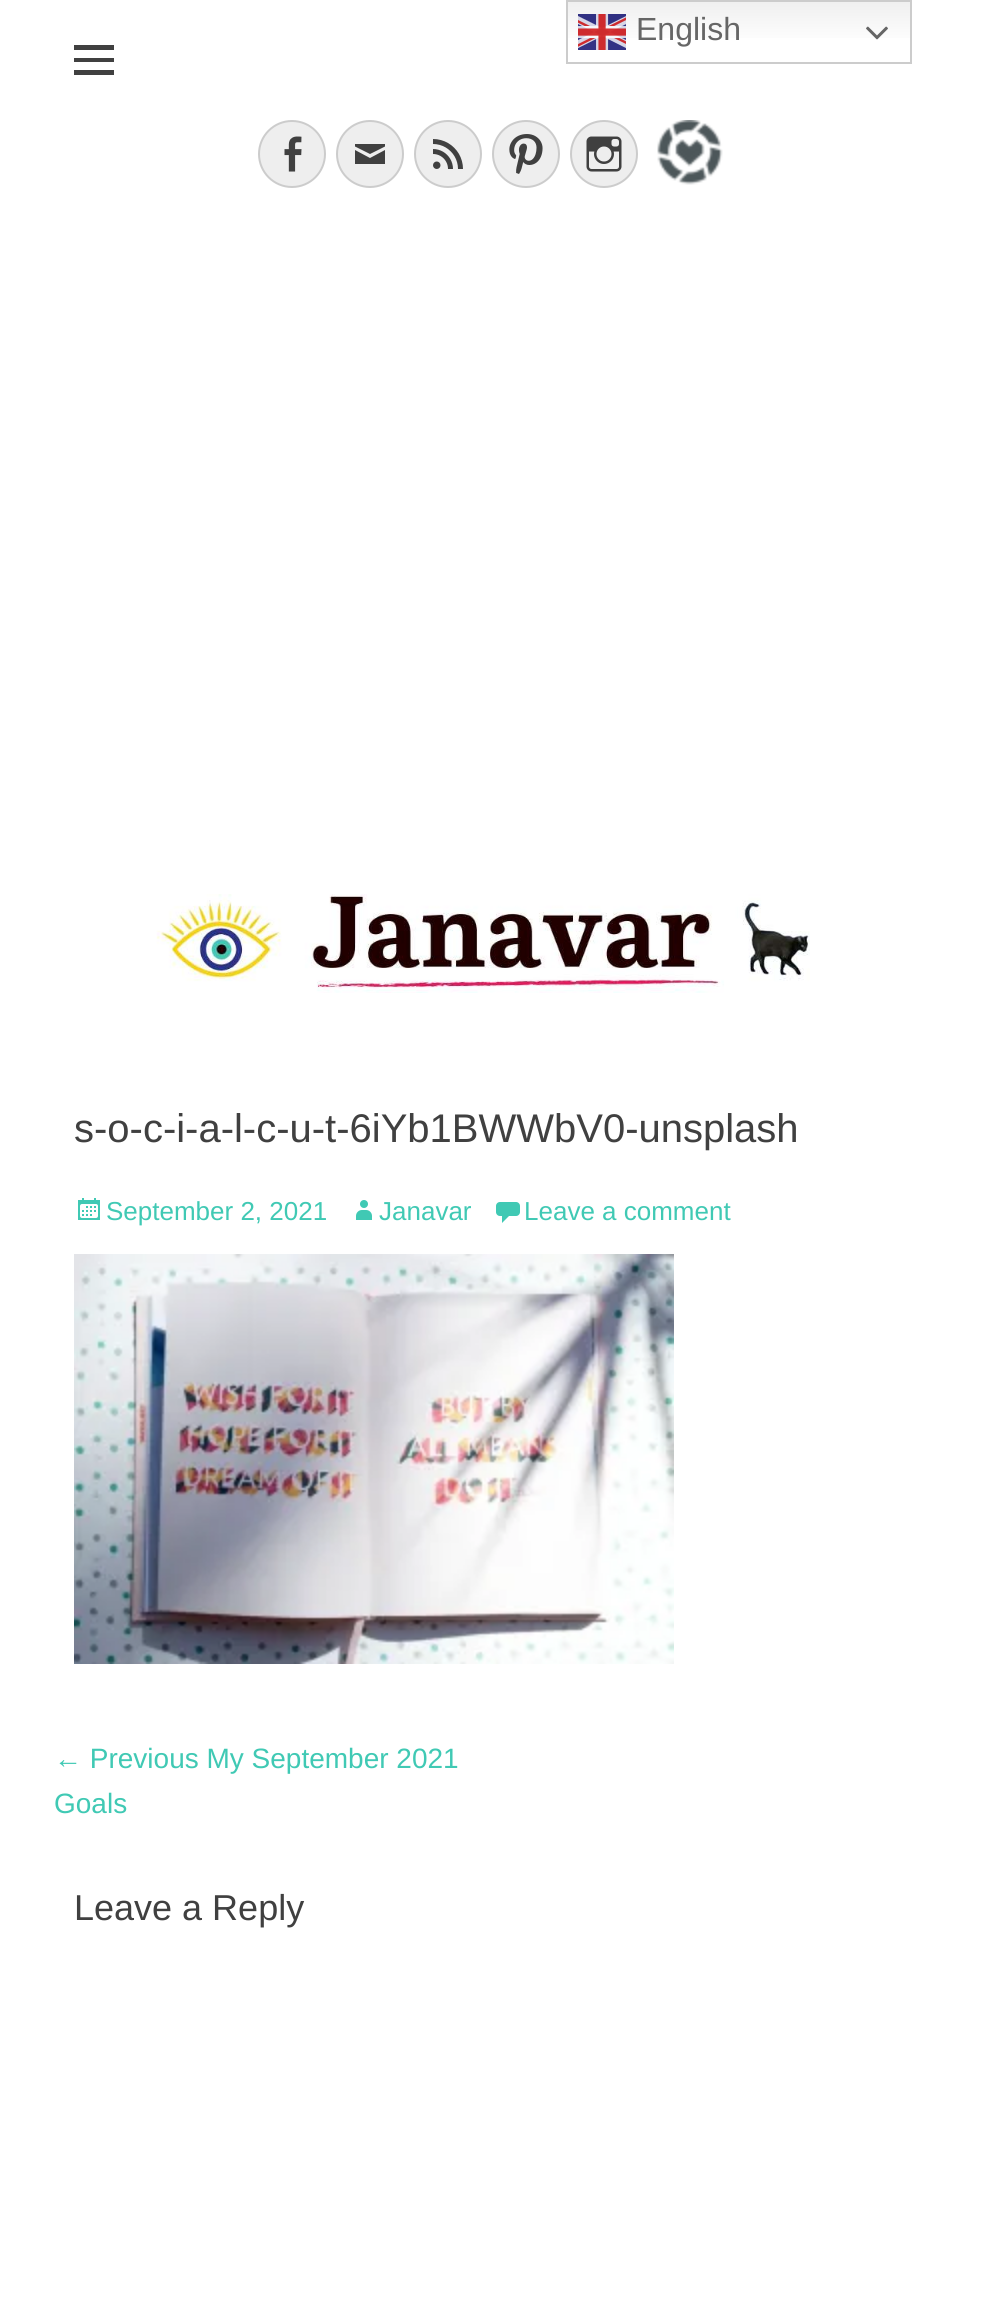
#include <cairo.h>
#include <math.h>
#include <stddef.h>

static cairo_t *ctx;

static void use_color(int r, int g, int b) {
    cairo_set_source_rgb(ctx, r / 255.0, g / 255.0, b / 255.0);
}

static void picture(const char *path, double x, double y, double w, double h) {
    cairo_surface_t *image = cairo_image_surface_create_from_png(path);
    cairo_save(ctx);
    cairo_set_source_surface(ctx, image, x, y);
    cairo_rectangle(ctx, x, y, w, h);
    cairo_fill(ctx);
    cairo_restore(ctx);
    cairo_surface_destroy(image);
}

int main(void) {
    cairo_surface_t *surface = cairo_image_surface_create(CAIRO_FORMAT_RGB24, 992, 2298);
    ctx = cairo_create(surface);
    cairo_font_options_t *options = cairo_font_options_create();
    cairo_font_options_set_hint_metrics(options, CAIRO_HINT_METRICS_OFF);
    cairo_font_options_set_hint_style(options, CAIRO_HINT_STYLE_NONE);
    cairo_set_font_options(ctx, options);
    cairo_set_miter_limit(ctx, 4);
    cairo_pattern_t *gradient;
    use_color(255, 255, 255);
    cairo_paint(ctx);
    gradient = cairo_pattern_create_linear(739, 0, 739, 64);
    cairo_pattern_add_color_stop_rgba(gradient, 0, 0.937, 0.937, 0.937, 1);
    cairo_pattern_add_color_stop_rgba(gradient, 0.7, 1, 1, 1, 1);
    cairo_set_source(ctx, gradient);
    cairo_pattern_destroy(gradient);
    cairo_rectangle(ctx, 568, 2, 342, 36);
    cairo_fill(ctx);
    cairo_rectangle(ctx, 567, 1, 344, 62);
    use_color(204, 204, 204);
    cairo_stroke(ctx);
    picture("img1.png", 578, 14, 48, 36);
    cairo_select_font_face(ctx, "Liberation Sans", CAIRO_FONT_SLANT_NORMAL, CAIRO_FONT_WEIGHT_NORMAL);
    cairo_set_font_size(ctx, 32);
    use_color(102, 102, 102);
    cairo_move_to(ctx, 636, 40);
    cairo_show_text(ctx, "English");
    picture("img2.png", 866, 26, 22, 14);
    use_color(64, 64, 64);
    cairo_new_path(ctx);
    cairo_move_to(ctx, 74, 75);
    cairo_line_to(ctx, 74, 70);
    cairo_line_to(ctx, 114, 70);
    cairo_line_to(ctx, 114, 75);
    cairo_close_path(ctx);
    cairo_move_to(ctx, 74, 45);
    cairo_line_to(ctx, 114, 45);
    cairo_line_to(ctx, 114, 50);
    cairo_line_to(ctx, 74, 50);
    cairo_close_path(ctx);
    cairo_move_to(ctx, 74, 62);
    cairo_line_to(ctx, 74, 58);
    cairo_line_to(ctx, 114, 58);
    cairo_line_to(ctx, 114, 62);
    cairo_close_path(ctx);
    cairo_fill(ctx);
    use_color(238, 238, 238);
    cairo_arc(ctx, 292, 154, 33, 0, 2 * M_PI);
    cairo_fill_preserve(ctx);
    use_color(204, 204, 204);
    cairo_stroke(ctx);
    picture("img3.png", 284, 136, 18, 36);
    use_color(238, 238, 238);
    cairo_arc(ctx, 370, 154, 33, 0, 2 * M_PI);
    cairo_fill_preserve(ctx);
    use_color(204, 204, 204);
    cairo_stroke(ctx);
    use_color(64, 64, 64);
    cairo_new_path(ctx);
    cairo_move_to(ctx, 355, 144);
    cairo_line_to(ctx, 385, 144);
    cairo_line_to(ctx, 385, 146.5);
    cairo_line_to(ctx, 370, 154);
    cairo_line_to(ctx, 355, 146.5);
    cairo_close_path(ctx);
    cairo_move_to(ctx, 355, 150);
    cairo_line_to(ctx, 370, 158);
    cairo_line_to(ctx, 385, 150);
    cairo_line_to(ctx, 385, 164);
    cairo_line_to(ctx, 355, 164);
    cairo_close_path(ctx);
    cairo_fill(ctx);
    use_color(238, 238, 238);
    cairo_arc(ctx, 448, 154, 33, 0, 2 * M_PI);
    cairo_fill_preserve(ctx);
    use_color(204, 204, 204);
    cairo_stroke(ctx);
    picture("img4.png", 433, 139, 30, 30);
    use_color(238, 238, 238);
    cairo_arc(ctx, 526, 154, 33, 0, 2 * M_PI);
    cairo_fill_preserve(ctx);
    use_color(204, 204, 204);
    cairo_stroke(ctx);
    picture("img5.png", 509, 134, 34, 40);
    use_color(238, 238, 238);
    cairo_arc(ctx, 604, 154, 33, 0, 2 * M_PI);
    cairo_fill_preserve(ctx);
    use_color(204, 204, 204);
    cairo_stroke(ctx);
    picture("img6.png", 586, 136, 36, 36);
    picture("img7.png", 657, 120, 66, 65);
    picture("img8.png", 156, 894, 654, 99);
    cairo_set_font_size(ctx, 40);
    use_color(64, 64, 64);
    cairo_move_to(ctx, 74, 1142);
    cairo_show_text(ctx, "s-o-c-i-a-l-c-u-t-6iYb1BWWbV0-unsplash");
    picture("img9.png", 78, 1198, 22, 22);
    cairo_set_font_size(ctx, 26);
    use_color(64, 201, 180);
    cairo_move_to(ctx, 106, 1220);
    cairo_show_text(ctx, "September 2, 2021");
    picture("img10.png", 356, 1200, 16, 20);
    cairo_move_to(ctx, 379, 1220);
    cairo_show_text(ctx, "Janavar");
    picture("img11.png", 496, 1202, 24, 21);
    cairo_move_to(ctx, 524, 1220);
    cairo_show_text(ctx, "Leave a comment");
    picture("img12.png", 74, 1254, 600, 410);
    cairo_set_font_size(ctx, 28);
    cairo_move_to(ctx, 54, 1768);
    cairo_show_text(ctx, "← Previous My September 2021");
    cairo_move_to(ctx, 54, 1813);
    cairo_show_text(ctx, "Goals");
    cairo_set_font_size(ctx, 36);
    use_color(64, 64, 64);
    cairo_move_to(ctx, 74, 1920);
    cairo_show_text(ctx, "Leave a Reply");
    cairo_surface_write_to_png(surface, "result.png");
    cairo_font_options_destroy(options);
    cairo_destroy(ctx);
    cairo_surface_destroy(surface);
    return 0;
}
